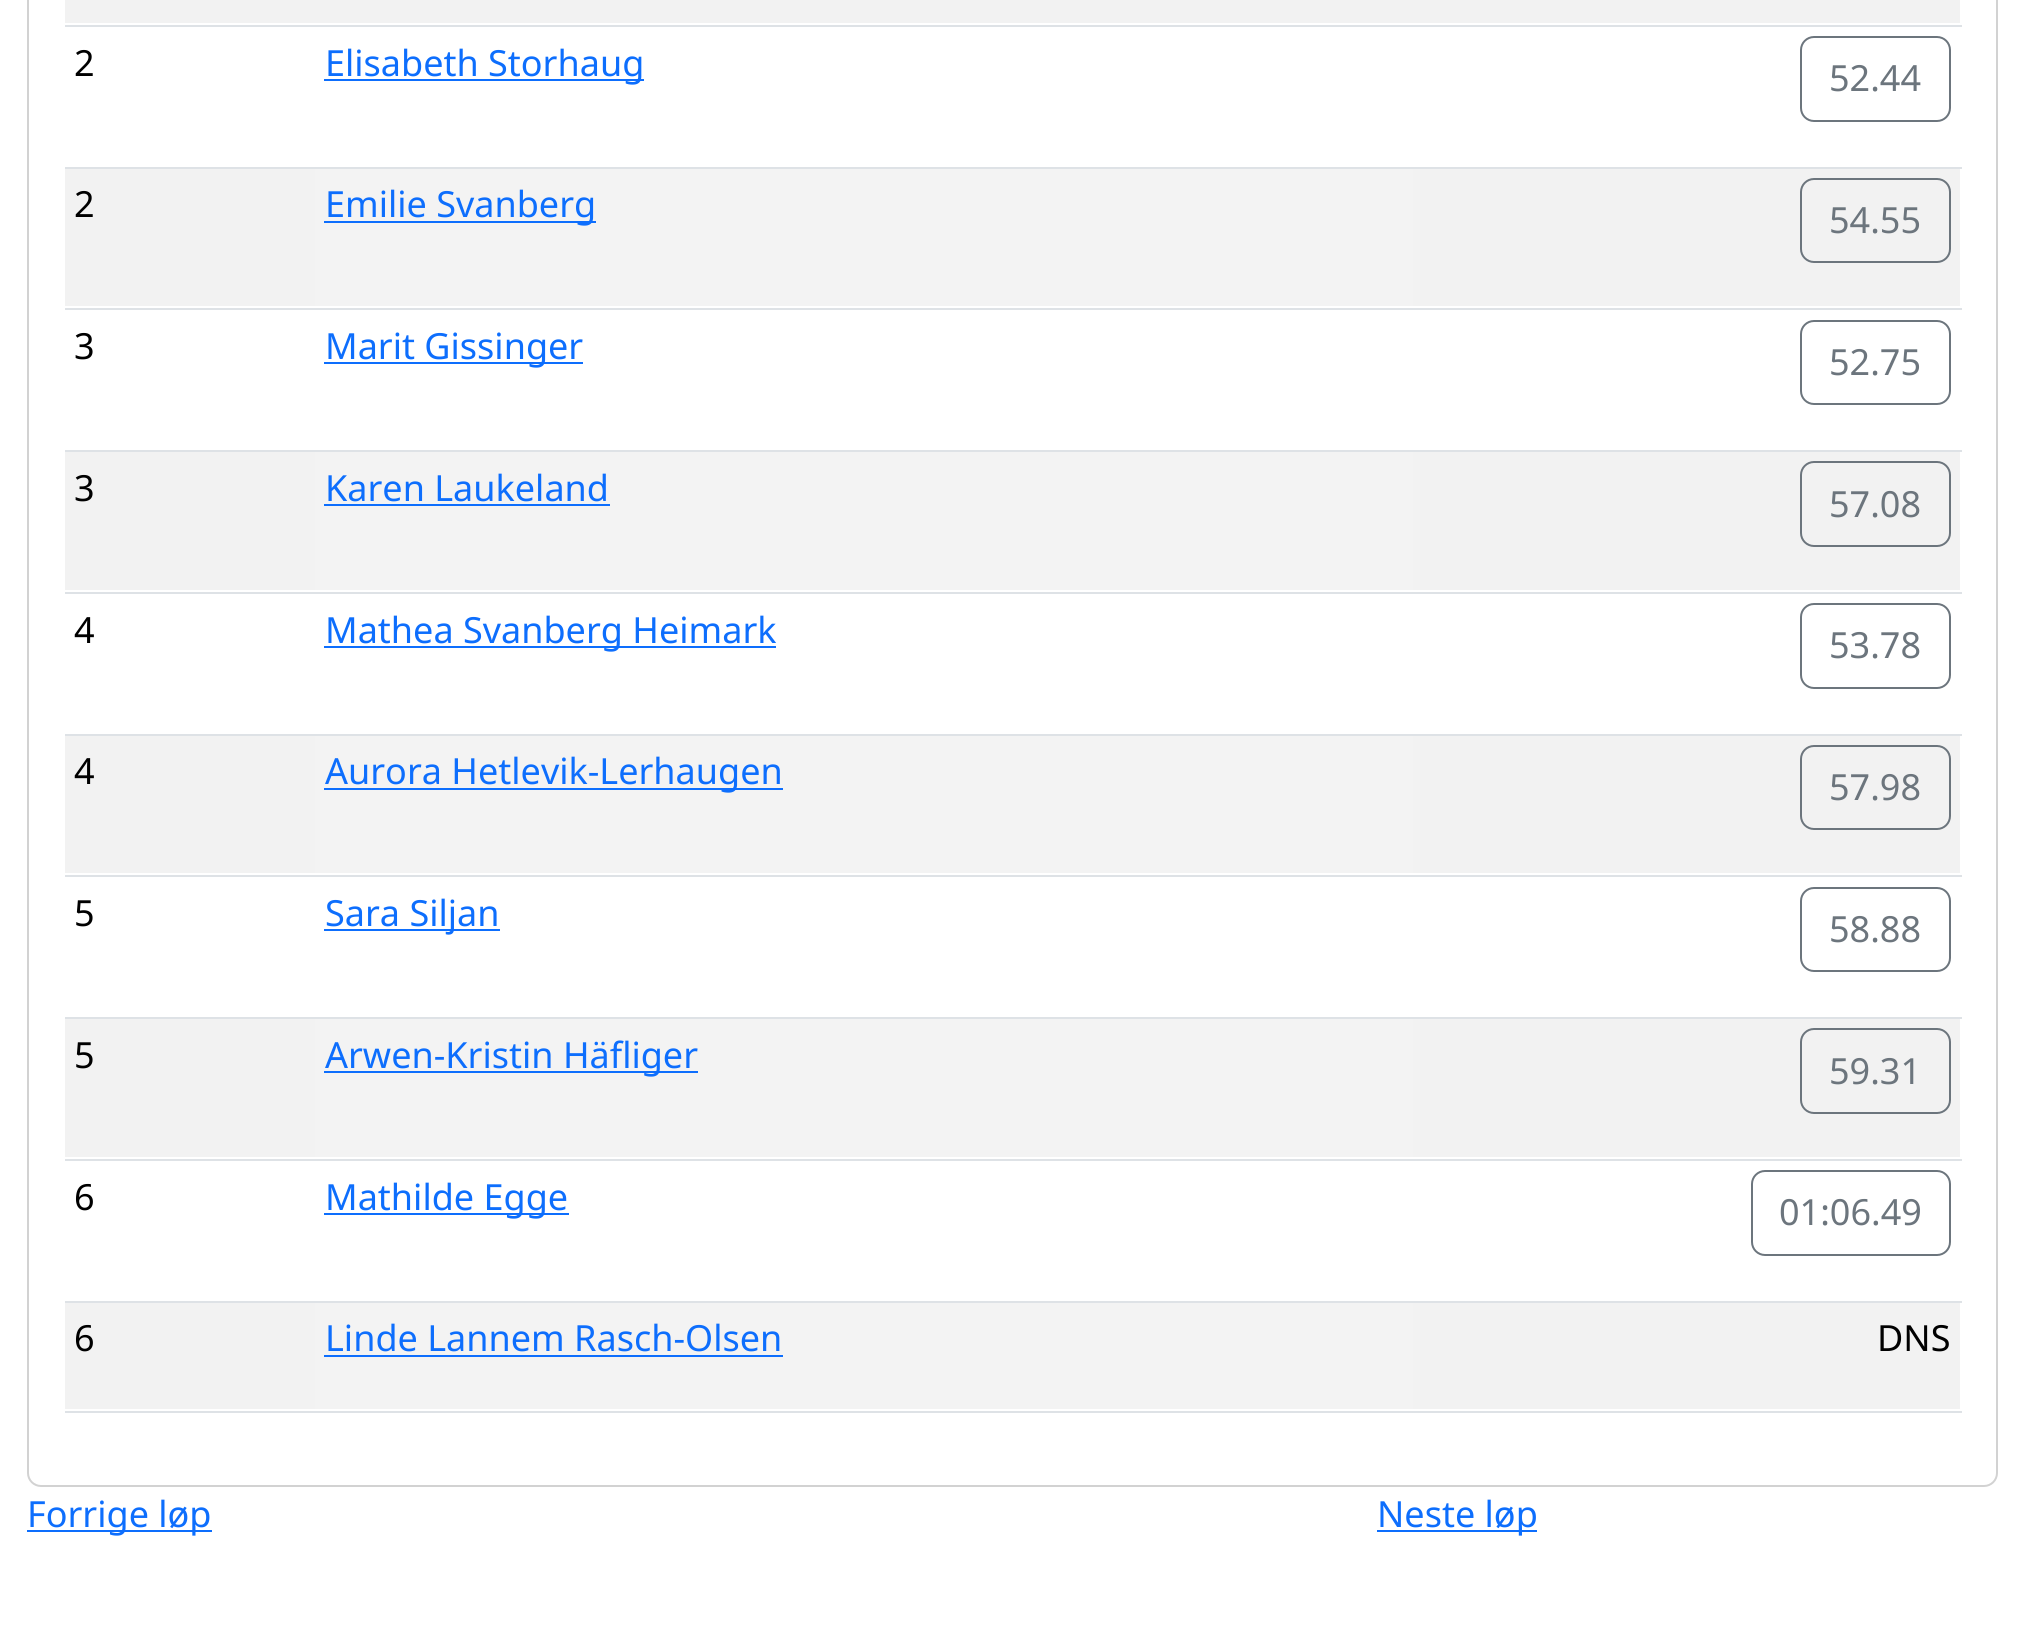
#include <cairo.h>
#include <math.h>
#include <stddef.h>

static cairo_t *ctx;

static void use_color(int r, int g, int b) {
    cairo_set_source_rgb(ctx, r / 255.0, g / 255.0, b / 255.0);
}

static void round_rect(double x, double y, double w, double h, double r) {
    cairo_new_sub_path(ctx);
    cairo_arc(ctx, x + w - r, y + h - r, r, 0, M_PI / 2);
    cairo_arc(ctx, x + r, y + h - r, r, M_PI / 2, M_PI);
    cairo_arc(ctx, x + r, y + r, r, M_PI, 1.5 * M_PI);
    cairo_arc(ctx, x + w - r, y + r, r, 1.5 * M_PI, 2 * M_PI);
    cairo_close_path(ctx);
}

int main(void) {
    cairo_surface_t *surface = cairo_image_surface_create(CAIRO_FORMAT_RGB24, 2024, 1631);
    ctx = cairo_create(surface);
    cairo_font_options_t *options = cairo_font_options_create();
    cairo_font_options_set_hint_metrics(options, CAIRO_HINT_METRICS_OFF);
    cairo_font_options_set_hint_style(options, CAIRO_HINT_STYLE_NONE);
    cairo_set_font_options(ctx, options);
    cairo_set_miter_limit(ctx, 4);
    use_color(255, 255, 255);
    cairo_paint(ctx);
    round_rect(28, -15, 1969, 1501, 13);
    use_color(210, 210, 210);
    cairo_stroke(ctx);
    use_color(242, 242, 242);
    cairo_rectangle(ctx, 65, 0, 1895, 23);
    cairo_fill(ctx);
    use_color(222, 226, 230);
    cairo_rectangle(ctx, 65, 25, 1897, 2);
    cairo_fill(ctx);
    cairo_select_font_face(ctx, "Noto Sans", CAIRO_FONT_SLANT_NORMAL, CAIRO_FONT_WEIGHT_NORMAL);
    cairo_set_font_size(ctx, 36);
    use_color(0, 0, 0);
    cairo_move_to(ctx, 74, 76);
    cairo_show_text(ctx, "2");
    use_color(13, 110, 253);
    cairo_rectangle(ctx, 324, 79, 320, 2);
    cairo_fill(ctx);
    cairo_move_to(ctx, 325, 76);
    cairo_show_text(ctx, "Elisabeth Storhaug");
    use_color(222, 226, 230);
    cairo_rectangle(ctx, 65, 167, 1897, 2);
    cairo_fill(ctx);
    round_rect(1801, 37, 149, 84, 13);
    use_color(108, 117, 125);
    cairo_stroke(ctx);
    cairo_move_to(ctx, 1829, 91);
    cairo_show_text(ctx, "52.44");
    use_color(242, 242, 242);
    cairo_rectangle(ctx, 65, 169, 250, 137);
    cairo_fill(ctx);
    use_color(0, 0, 0);
    cairo_move_to(ctx, 74, 217);
    cairo_show_text(ctx, "2");
    use_color(243, 243, 243);
    cairo_rectangle(ctx, 315, 169, 1098, 137);
    cairo_fill(ctx);
    use_color(13, 110, 253);
    cairo_rectangle(ctx, 324, 221, 272, 2);
    cairo_fill(ctx);
    cairo_move_to(ctx, 325, 217);
    cairo_show_text(ctx, "Emilie Svanberg");
    use_color(242, 242, 242);
    cairo_rectangle(ctx, 1413, 169, 547, 137);
    cairo_fill(ctx);
    use_color(222, 226, 230);
    cairo_rectangle(ctx, 65, 308, 1897, 2);
    cairo_fill(ctx);
    round_rect(1801, 179, 149, 83, 13);
    use_color(108, 117, 125);
    cairo_stroke(ctx);
    cairo_move_to(ctx, 1829, 233);
    cairo_show_text(ctx, "54.55");
    use_color(0, 0, 0);
    cairo_move_to(ctx, 74, 359);
    cairo_show_text(ctx, "3");
    use_color(13, 110, 253);
    cairo_rectangle(ctx, 324, 362, 259, 2);
    cairo_fill(ctx);
    cairo_move_to(ctx, 325, 359);
    cairo_show_text(ctx, "Marit Gissinger");
    use_color(222, 226, 230);
    cairo_rectangle(ctx, 65, 450, 1897, 2);
    cairo_fill(ctx);
    round_rect(1801, 321, 149, 83, 13);
    use_color(108, 117, 125);
    cairo_stroke(ctx);
    cairo_move_to(ctx, 1829, 375);
    cairo_show_text(ctx, "52.75");
    use_color(242, 242, 242);
    cairo_rectangle(ctx, 65, 452, 250, 138);
    cairo_fill(ctx);
    use_color(0, 0, 0);
    cairo_move_to(ctx, 74, 501);
    cairo_show_text(ctx, "3");
    use_color(243, 243, 243);
    cairo_rectangle(ctx, 315, 452, 1098, 138);
    cairo_fill(ctx);
    use_color(13, 110, 253);
    cairo_move_to(ctx, 325, 501);
    cairo_show_text(ctx, "Karen Laukeland");
    cairo_rectangle(ctx, 324, 504, 286, 2);
    cairo_fill(ctx);
    use_color(242, 242, 242);
    cairo_rectangle(ctx, 1413, 452, 547, 138);
    cairo_fill(ctx);
    use_color(222, 226, 230);
    cairo_rectangle(ctx, 65, 592, 1897, 2);
    cairo_fill(ctx);
    round_rect(1801, 462, 149, 84, 13);
    use_color(108, 117, 125);
    cairo_stroke(ctx);
    cairo_move_to(ctx, 1829, 517);
    cairo_show_text(ctx, "57.08");
    use_color(0, 0, 0);
    cairo_move_to(ctx, 74, 643);
    cairo_show_text(ctx, "4");
    use_color(13, 110, 253);
    cairo_rectangle(ctx, 324, 646, 452, 2);
    cairo_fill(ctx);
    cairo_move_to(ctx, 325, 643);
    cairo_show_text(ctx, "Mathea Svanberg Heimark");
    use_color(222, 226, 230);
    cairo_rectangle(ctx, 65, 734, 1897, 2);
    cairo_fill(ctx);
    round_rect(1801, 604, 149, 84, 13);
    use_color(108, 117, 125);
    cairo_stroke(ctx);
    cairo_move_to(ctx, 1829, 658);
    cairo_show_text(ctx, "53.78");
    use_color(242, 242, 242);
    cairo_rectangle(ctx, 65, 736, 250, 137);
    cairo_fill(ctx);
    use_color(0, 0, 0);
    cairo_move_to(ctx, 74, 784);
    cairo_show_text(ctx, "4");
    use_color(243, 243, 243);
    cairo_rectangle(ctx, 315, 736, 1098, 137);
    cairo_fill(ctx);
    use_color(13, 110, 253);
    cairo_rectangle(ctx, 324, 788, 459, 2);
    cairo_fill(ctx);
    cairo_move_to(ctx, 325, 784);
    cairo_show_text(ctx, "Aurora Hetlevik-Lerhaugen");
    use_color(242, 242, 242);
    cairo_rectangle(ctx, 1413, 736, 547, 137);
    cairo_fill(ctx);
    use_color(222, 226, 230);
    cairo_rectangle(ctx, 65, 875, 1897, 2);
    cairo_fill(ctx);
    round_rect(1801, 746, 149, 83, 13);
    use_color(108, 117, 125);
    cairo_stroke(ctx);
    cairo_move_to(ctx, 1829, 800);
    cairo_show_text(ctx, "57.98");
    use_color(0, 0, 0);
    cairo_move_to(ctx, 74, 926);
    cairo_show_text(ctx, "5");
    use_color(13, 110, 253);
    cairo_rectangle(ctx, 324, 929, 176, 2);
    cairo_fill(ctx);
    cairo_move_to(ctx, 325, 926);
    cairo_show_text(ctx, "Sara Siljan");
    use_color(222, 226, 230);
    cairo_rectangle(ctx, 65, 1017, 1897, 2);
    cairo_fill(ctx);
    round_rect(1801, 888, 149, 83, 13);
    use_color(108, 117, 125);
    cairo_stroke(ctx);
    cairo_move_to(ctx, 1829, 942);
    cairo_show_text(ctx, "58.88");
    use_color(242, 242, 242);
    cairo_rectangle(ctx, 65, 1019, 250, 138);
    cairo_fill(ctx);
    use_color(0, 0, 0);
    cairo_move_to(ctx, 74, 1068);
    cairo_show_text(ctx, "5");
    use_color(243, 243, 243);
    cairo_rectangle(ctx, 315, 1019, 1098, 138);
    cairo_fill(ctx);
    use_color(13, 110, 253);
    cairo_rectangle(ctx, 324, 1071, 374, 2);
    cairo_fill(ctx);
    cairo_move_to(ctx, 325, 1068);
    cairo_show_text(ctx, "Arwen-Kristin Häfliger");
    use_color(242, 242, 242);
    cairo_rectangle(ctx, 1413, 1019, 547, 138);
    cairo_fill(ctx);
    use_color(222, 226, 230);
    cairo_rectangle(ctx, 65, 1159, 1897, 2);
    cairo_fill(ctx);
    round_rect(1801, 1029, 149, 84, 13);
    use_color(108, 117, 125);
    cairo_stroke(ctx);
    cairo_move_to(ctx, 1829, 1084);
    cairo_show_text(ctx, "59.31");
    use_color(0, 0, 0);
    cairo_move_to(ctx, 74, 1210);
    cairo_show_text(ctx, "6");
    use_color(13, 110, 253);
    cairo_rectangle(ctx, 324, 1213, 245, 2);
    cairo_fill(ctx);
    cairo_move_to(ctx, 325, 1210);
    cairo_show_text(ctx, "Mathilde Egge");
    use_color(222, 226, 230);
    cairo_rectangle(ctx, 65, 1301, 1897, 2);
    cairo_fill(ctx);
    round_rect(1752, 1171, 198, 84, 13);
    use_color(108, 117, 125);
    cairo_stroke(ctx);
    cairo_move_to(ctx, 1779, 1225);
    cairo_show_text(ctx, "01:06.49");
    use_color(242, 242, 242);
    cairo_rectangle(ctx, 65, 1303, 250, 106);
    cairo_fill(ctx);
    use_color(0, 0, 0);
    cairo_move_to(ctx, 74, 1351);
    cairo_show_text(ctx, "6");
    use_color(243, 243, 243);
    cairo_rectangle(ctx, 315, 1303, 1098, 106);
    cairo_fill(ctx);
    use_color(13, 110, 253);
    cairo_move_to(ctx, 325, 1351);
    cairo_show_text(ctx, "Linde Lannem Rasch-Olsen");
    cairo_rectangle(ctx, 324, 1355, 459, 2);
    cairo_fill(ctx);
    use_color(242, 242, 242);
    cairo_rectangle(ctx, 1413, 1303, 547, 106);
    cairo_fill(ctx);
    use_color(222, 226, 230);
    cairo_rectangle(ctx, 65, 1411, 1897, 2);
    cairo_fill(ctx);
    use_color(0, 0, 0);
    cairo_move_to(ctx, 1877, 1351);
    cairo_show_text(ctx, "DNS");
    use_color(13, 110, 253);
    cairo_rectangle(ctx, 27, 1530, 185, 2);
    cairo_fill(ctx);
    cairo_move_to(ctx, 27, 1527);
    cairo_show_text(ctx, "Forrige løp");
    cairo_rectangle(ctx, 1377, 1530, 160, 2);
    cairo_fill(ctx);
    cairo_move_to(ctx, 1377, 1527);
    cairo_show_text(ctx, "Neste løp");
    cairo_surface_write_to_png(surface, "result.png");
    cairo_font_options_destroy(options);
    cairo_destroy(ctx);
    cairo_surface_destroy(surface);
    return 0;
}
